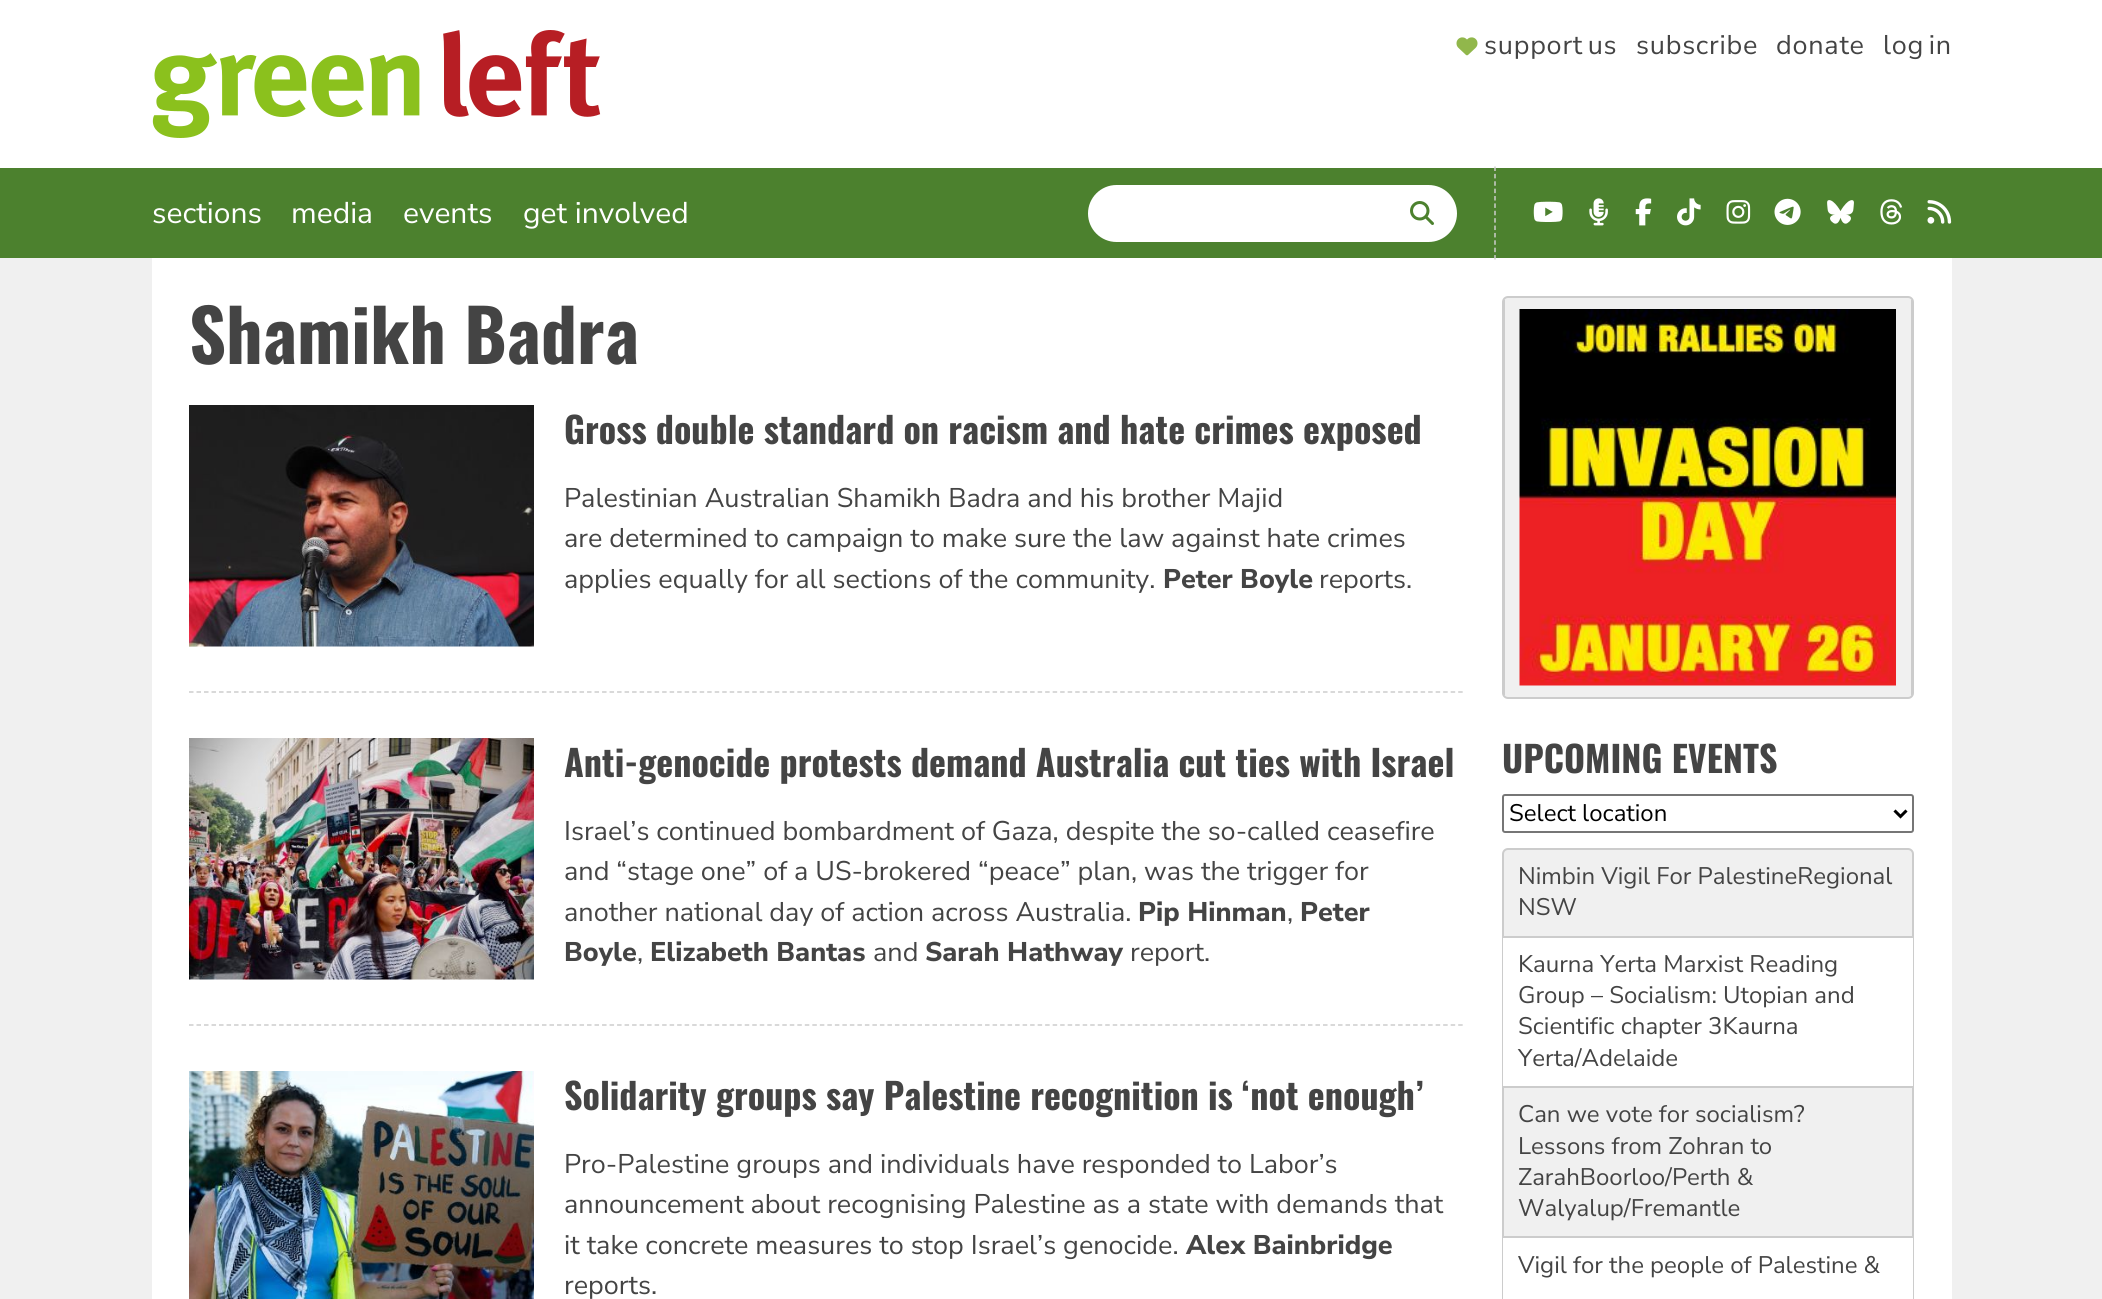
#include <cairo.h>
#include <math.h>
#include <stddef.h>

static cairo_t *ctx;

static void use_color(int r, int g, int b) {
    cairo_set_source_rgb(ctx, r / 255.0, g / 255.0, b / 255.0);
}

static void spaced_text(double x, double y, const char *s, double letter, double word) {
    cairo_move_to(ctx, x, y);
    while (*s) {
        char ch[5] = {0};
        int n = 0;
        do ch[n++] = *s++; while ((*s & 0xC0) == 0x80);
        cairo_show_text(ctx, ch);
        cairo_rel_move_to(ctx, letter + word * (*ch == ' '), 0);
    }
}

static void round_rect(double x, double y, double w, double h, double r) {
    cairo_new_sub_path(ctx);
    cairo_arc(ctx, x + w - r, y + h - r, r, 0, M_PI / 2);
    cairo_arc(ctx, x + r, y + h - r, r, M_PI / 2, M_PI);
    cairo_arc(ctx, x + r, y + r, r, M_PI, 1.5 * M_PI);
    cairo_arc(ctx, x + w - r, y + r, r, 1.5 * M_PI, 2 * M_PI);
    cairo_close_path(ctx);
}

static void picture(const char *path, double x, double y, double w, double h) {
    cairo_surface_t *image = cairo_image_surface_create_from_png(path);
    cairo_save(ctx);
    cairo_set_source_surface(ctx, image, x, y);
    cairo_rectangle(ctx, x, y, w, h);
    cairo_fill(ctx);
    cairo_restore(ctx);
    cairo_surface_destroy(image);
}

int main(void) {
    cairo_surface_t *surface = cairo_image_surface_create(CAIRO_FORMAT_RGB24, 2102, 1299);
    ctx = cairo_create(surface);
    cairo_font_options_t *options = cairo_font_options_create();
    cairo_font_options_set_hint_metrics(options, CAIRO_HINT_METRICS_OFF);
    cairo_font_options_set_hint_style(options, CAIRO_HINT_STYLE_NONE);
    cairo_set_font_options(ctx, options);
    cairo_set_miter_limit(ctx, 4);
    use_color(240, 240, 240);
    cairo_paint(ctx);
    use_color(255, 255, 255);
    cairo_rectangle(ctx, 0, 0, 2102, 168);
    cairo_fill(ctx);
    picture("img1.png", 152, 30, 449, 108);
    picture("img2.png", 1456, 37, 22, 19);
    cairo_select_font_face(ctx, "Nunito Sans ExtraLight", CAIRO_FONT_SLANT_NORMAL, CAIRO_FONT_WEIGHT_NORMAL);
    cairo_set_font_size(ctx, 27);
    use_color(68, 68, 68);
    spaced_text(1484, 54, "support us", 0.75, -3);
    spaced_text(1636, 54, "subscribe", 0.75, 0);
    spaced_text(1776, 54, "donate", 0.75, 0);
    spaced_text(1883, 54, "log in", 0.75, -3);
    use_color(76, 129, 46);
    cairo_rectangle(ctx, 0, 168, 2102, 90);
    cairo_fill(ctx);
    cairo_set_font_size(ctx, 30);
    use_color(255, 255, 255);
    cairo_move_to(ctx, 152, 223);
    cairo_show_text(ctx, "sections");
    cairo_move_to(ctx, 291, 223);
    cairo_show_text(ctx, "media");
    cairo_move_to(ctx, 403, 223);
    cairo_show_text(ctx, "events");
    cairo_move_to(ctx, 523, 223);
    cairo_show_text(ctx, "get involved");
    round_rect(1088, 185, 369, 57, 28.5);
    cairo_fill(ctx);
    picture("img3.png", 1410, 201, 24, 24);
    cairo_rectangle(ctx, 152, 258, 1800, 1041);
    cairo_fill(ctx);
    cairo_new_path(ctx);
    cairo_move_to(ctx, 1495, 166.5);
    cairo_line_to(ctx, 1495, 259.5);
    use_color(204, 204, 204);
    cairo_set_line_width(ctx, 1.5);
    cairo_set_dash(ctx, (double[]){4.5, 2.88}, 2, 0);
    cairo_stroke(ctx);
    picture("img4.png", 1533, 201, 30, 21);
    picture("img5.png", 1589, 198, 19, 28);
    picture("img6.png", 1635, 198, 17, 28);
    picture("img7.png", 1677, 198, 24, 28);
    picture("img8.png", 1726, 200, 25, 24);
    picture("img9.png", 1774, 198, 27, 27);
    picture("img10.png", 1827, 200, 27, 24);
    picture("img11.png", 1880, 199, 23, 26);
    picture("img12.png", 1927, 200, 25, 24);
    cairo_select_font_face(ctx, "Oswald", CAIRO_FONT_SLANT_NORMAL, CAIRO_FONT_WEIGHT_BOLD);
    cairo_set_font_size(ctx, 72);
    use_color(68, 68, 68);
    cairo_move_to(ctx, 189, 364);
    cairo_show_text(ctx, "Shamikh Badra");
    cairo_new_path(ctx);
    cairo_move_to(ctx, 189, 692);
    cairo_line_to(ctx, 1464, 692);
    use_color(204, 204, 204);
    cairo_set_dash(ctx, (double[]){4.5, 3.01}, 2, 0);
    cairo_stroke(ctx);
    picture("img13.png", 189, 405, 345, 242);
    cairo_set_font_size(ctx, 36);
    use_color(68, 68, 68);
    cairo_move_to(ctx, 564, 444);
    cairo_show_text(ctx, "Gross double standard on racism and hate crimes exposed");
    cairo_select_font_face(ctx, "Nunito Sans ExtraLight", CAIRO_FONT_SLANT_NORMAL, CAIRO_FONT_WEIGHT_NORMAL);
    cairo_set_font_size(ctx, 27);
    cairo_move_to(ctx, 564, 507);
    cairo_show_text(ctx, "Palestinian Australian Shamikh Badra and his brother Majid");
    cairo_move_to(ctx, 564, 547);
    cairo_show_text(ctx, "are determined to campaign to make sure the law against hate crimes");
    cairo_move_to(ctx, 564, 588);
    cairo_show_text(ctx, "applies equally for all sections of the community.");
    cairo_select_font_face(ctx, "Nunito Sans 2 ExtraLight", CAIRO_FONT_SLANT_NORMAL, CAIRO_FONT_WEIGHT_NORMAL);
    cairo_move_to(ctx, 1163, 588);
    cairo_show_text(ctx, "Peter Boyle");
    cairo_select_font_face(ctx, "Nunito Sans ExtraLight", CAIRO_FONT_SLANT_NORMAL, CAIRO_FONT_WEIGHT_NORMAL);
    cairo_move_to(ctx, 1319, 588);
    cairo_show_text(ctx, "reports.");
    cairo_new_path(ctx);
    cairo_move_to(ctx, 189, 1025);
    cairo_line_to(ctx, 1464, 1025);
    use_color(204, 204, 204);
    cairo_stroke(ctx);
    picture("img14.png", 189, 738, 345, 242);
    cairo_select_font_face(ctx, "Oswald", CAIRO_FONT_SLANT_NORMAL, CAIRO_FONT_WEIGHT_BOLD);
    cairo_set_font_size(ctx, 36);
    use_color(68, 68, 68);
    cairo_move_to(ctx, 564, 777);
    cairo_show_text(ctx, "Anti-genocide protests demand Australia cut ties with Israel");
    cairo_select_font_face(ctx, "Nunito Sans ExtraLight", CAIRO_FONT_SLANT_NORMAL, CAIRO_FONT_WEIGHT_NORMAL);
    cairo_set_font_size(ctx, 27);
    cairo_move_to(ctx, 564, 840);
    cairo_show_text(ctx, "Israel’s continued bombardment of Gaza, despite the so-called ceasefire");
    cairo_move_to(ctx, 564, 880);
    cairo_show_text(ctx, "and “stage one” of a US-brokered “peace” plan, was the trigger for");
    cairo_move_to(ctx, 564, 921);
    cairo_show_text(ctx, "another national day of action across Australia.");
    cairo_select_font_face(ctx, "Nunito Sans 2 ExtraLight", CAIRO_FONT_SLANT_NORMAL, CAIRO_FONT_WEIGHT_NORMAL);
    cairo_move_to(ctx, 1138, 921);
    cairo_show_text(ctx, "Pip Hinman");
    cairo_select_font_face(ctx, "Nunito Sans ExtraLight", CAIRO_FONT_SLANT_NORMAL, CAIRO_FONT_WEIGHT_NORMAL);
    cairo_move_to(ctx, 1287, 921);
    cairo_show_text(ctx, ",");
    cairo_select_font_face(ctx, "Nunito Sans 2 ExtraLight", CAIRO_FONT_SLANT_NORMAL, CAIRO_FONT_WEIGHT_NORMAL);
    cairo_move_to(ctx, 1300, 921);
    cairo_show_text(ctx, "Peter");
    cairo_move_to(ctx, 564, 961);
    cairo_show_text(ctx, "Boyle");
    cairo_select_font_face(ctx, "Nunito Sans ExtraLight", CAIRO_FONT_SLANT_NORMAL, CAIRO_FONT_WEIGHT_NORMAL);
    cairo_move_to(ctx, 637, 961);
    cairo_show_text(ctx, ",");
    cairo_select_font_face(ctx, "Nunito Sans 2 ExtraLight", CAIRO_FONT_SLANT_NORMAL, CAIRO_FONT_WEIGHT_NORMAL);
    cairo_move_to(ctx, 650, 961);
    cairo_show_text(ctx, "Elizabeth Bantas");
    cairo_select_font_face(ctx, "Nunito Sans ExtraLight", CAIRO_FONT_SLANT_NORMAL, CAIRO_FONT_WEIGHT_NORMAL);
    cairo_move_to(ctx, 873, 961);
    cairo_show_text(ctx, "and");
    cairo_select_font_face(ctx, "Nunito Sans 2 ExtraLight", CAIRO_FONT_SLANT_NORMAL, CAIRO_FONT_WEIGHT_NORMAL);
    cairo_move_to(ctx, 925, 961);
    cairo_show_text(ctx, "Sarah Hathway");
    cairo_select_font_face(ctx, "Nunito Sans ExtraLight", CAIRO_FONT_SLANT_NORMAL, CAIRO_FONT_WEIGHT_NORMAL);
    cairo_move_to(ctx, 1130, 961);
    cairo_show_text(ctx, "report.");
    picture("img15.png", 189, 1071, 345, 228);
    cairo_select_font_face(ctx, "Oswald", CAIRO_FONT_SLANT_NORMAL, CAIRO_FONT_WEIGHT_BOLD);
    cairo_set_font_size(ctx, 36);
    cairo_move_to(ctx, 564, 1110);
    cairo_show_text(ctx, "Solidarity groups say Palestine recognition is ‘not enough’");
    cairo_select_font_face(ctx, "Nunito Sans ExtraLight", CAIRO_FONT_SLANT_NORMAL, CAIRO_FONT_WEIGHT_NORMAL);
    cairo_set_font_size(ctx, 27);
    cairo_move_to(ctx, 564, 1173);
    cairo_show_text(ctx, "Pro-Palestine groups and individuals have responded to Labor’s");
    cairo_move_to(ctx, 564, 1213);
    cairo_show_text(ctx, "announcement about recognising Palestine as a state with demands that");
    cairo_move_to(ctx, 564, 1254);
    cairo_show_text(ctx, "it take concrete measures to stop Israel’s genocide.");
    cairo_select_font_face(ctx, "Nunito Sans 2 ExtraLight", CAIRO_FONT_SLANT_NORMAL, CAIRO_FONT_WEIGHT_NORMAL);
    cairo_move_to(ctx, 1186, 1254);
    cairo_show_text(ctx, "Alex Bainbridge");
    cairo_select_font_face(ctx, "Nunito Sans ExtraLight", CAIRO_FONT_SLANT_NORMAL, CAIRO_FONT_WEIGHT_NORMAL);
    cairo_move_to(ctx, 564, 1294);
    cairo_show_text(ctx, "reports.");
    use_color(240, 240, 240);
    round_rect(1503, 297, 410, 401, 5);
    cairo_fill_preserve(ctx);
    use_color(204, 204, 204);
    cairo_set_line_width(ctx, 2);
    cairo_set_dash(ctx, NULL, 0, 0);
    cairo_stroke(ctx);
    cairo_rectangle(ctx, 1911, 300, 1, 395);
    cairo_fill(ctx);
    cairo_rectangle(ctx, 1504, 300, 1, 395);
    cairo_fill(ctx);
    picture("img16.png", 1519, 309, 377, 377);
    cairo_select_font_face(ctx, "Oswald", CAIRO_FONT_SLANT_NORMAL, CAIRO_FONT_WEIGHT_BOLD);
    cairo_set_font_size(ctx, 36);
    use_color(68, 68, 68);
    cairo_move_to(ctx, 1502, 773);
    cairo_show_text(ctx, "UPCOMING EVENTS");
    round_rect(1503, 795, 410, 37, 2);
    use_color(118, 118, 118);
    cairo_stroke(ctx);
    cairo_new_path(ctx);
    cairo_move_to(ctx, 1894.5, 810.5);
    cairo_line_to(ctx, 1900.5, 816.5);
    cairo_line_to(ctx, 1906.5, 810.5);
    use_color(0, 0, 0);
    cairo_set_line_width(ctx, 3);
    cairo_stroke(ctx);
    cairo_select_font_face(ctx, "Nunito Sans ExtraLight", CAIRO_FONT_SLANT_NORMAL, CAIRO_FONT_WEIGHT_NORMAL);
    cairo_set_font_size(ctx, 24);
    cairo_move_to(ctx, 1509, 821);
    cairo_show_text(ctx, "Select location");
    use_color(240, 240, 240);
    round_rect(1503, 849, 410, 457, 5);
    cairo_fill_preserve(ctx);
    use_color(204, 204, 204);
    cairo_set_line_width(ctx, 2);
    cairo_stroke(ctx);
    cairo_rectangle(ctx, 1503, 936, 410, 2);
    cairo_fill(ctx);
    use_color(68, 68, 68);
    cairo_move_to(ctx, 1518, 884);
    cairo_show_text(ctx, "Nimbin Vigil For PalestineRegional");
    cairo_move_to(ctx, 1518, 915);
    cairo_show_text(ctx, "NSW");
    use_color(255, 255, 255);
    cairo_rectangle(ctx, 1503, 938, 410, 148);
    cairo_fill(ctx);
    use_color(204, 204, 204);
    cairo_rectangle(ctx, 1503, 1086, 410, 2);
    cairo_fill(ctx);
    use_color(68, 68, 68);
    cairo_move_to(ctx, 1518, 972);
    cairo_show_text(ctx, "Kaurna Yerta Marxist Reading");
    cairo_move_to(ctx, 1518, 1003);
    cairo_show_text(ctx, "Group – Socialism: Utopian and");
    cairo_move_to(ctx, 1518, 1034);
    cairo_show_text(ctx, "Scientific chapter 3Kaurna");
    cairo_move_to(ctx, 1518, 1066);
    cairo_show_text(ctx, "Yerta/Adelaide");
    use_color(204, 204, 204);
    cairo_rectangle(ctx, 1503, 1236, 410, 2);
    cairo_fill(ctx);
    use_color(68, 68, 68);
    cairo_move_to(ctx, 1518, 1122);
    cairo_show_text(ctx, "Can we vote for socialism?");
    cairo_move_to(ctx, 1518, 1154);
    cairo_show_text(ctx, "Lessons from Zohran to");
    cairo_move_to(ctx, 1518, 1185);
    cairo_show_text(ctx, "ZarahBoorloo/Perth &");
    cairo_move_to(ctx, 1518, 1216);
    cairo_show_text(ctx, "Walyalup/Fremantle");
    use_color(255, 255, 255);
    cairo_rectangle(ctx, 1503, 1238, 410, 61);
    cairo_fill(ctx);
    use_color(68, 68, 68);
    cairo_move_to(ctx, 1518, 1273);
    cairo_show_text(ctx, "Vigil for the people of Palestine &");
    cairo_surface_write_to_png(surface, "result.png");
    cairo_font_options_destroy(options);
    cairo_destroy(ctx);
    cairo_surface_destroy(surface);
    return 0;
}
